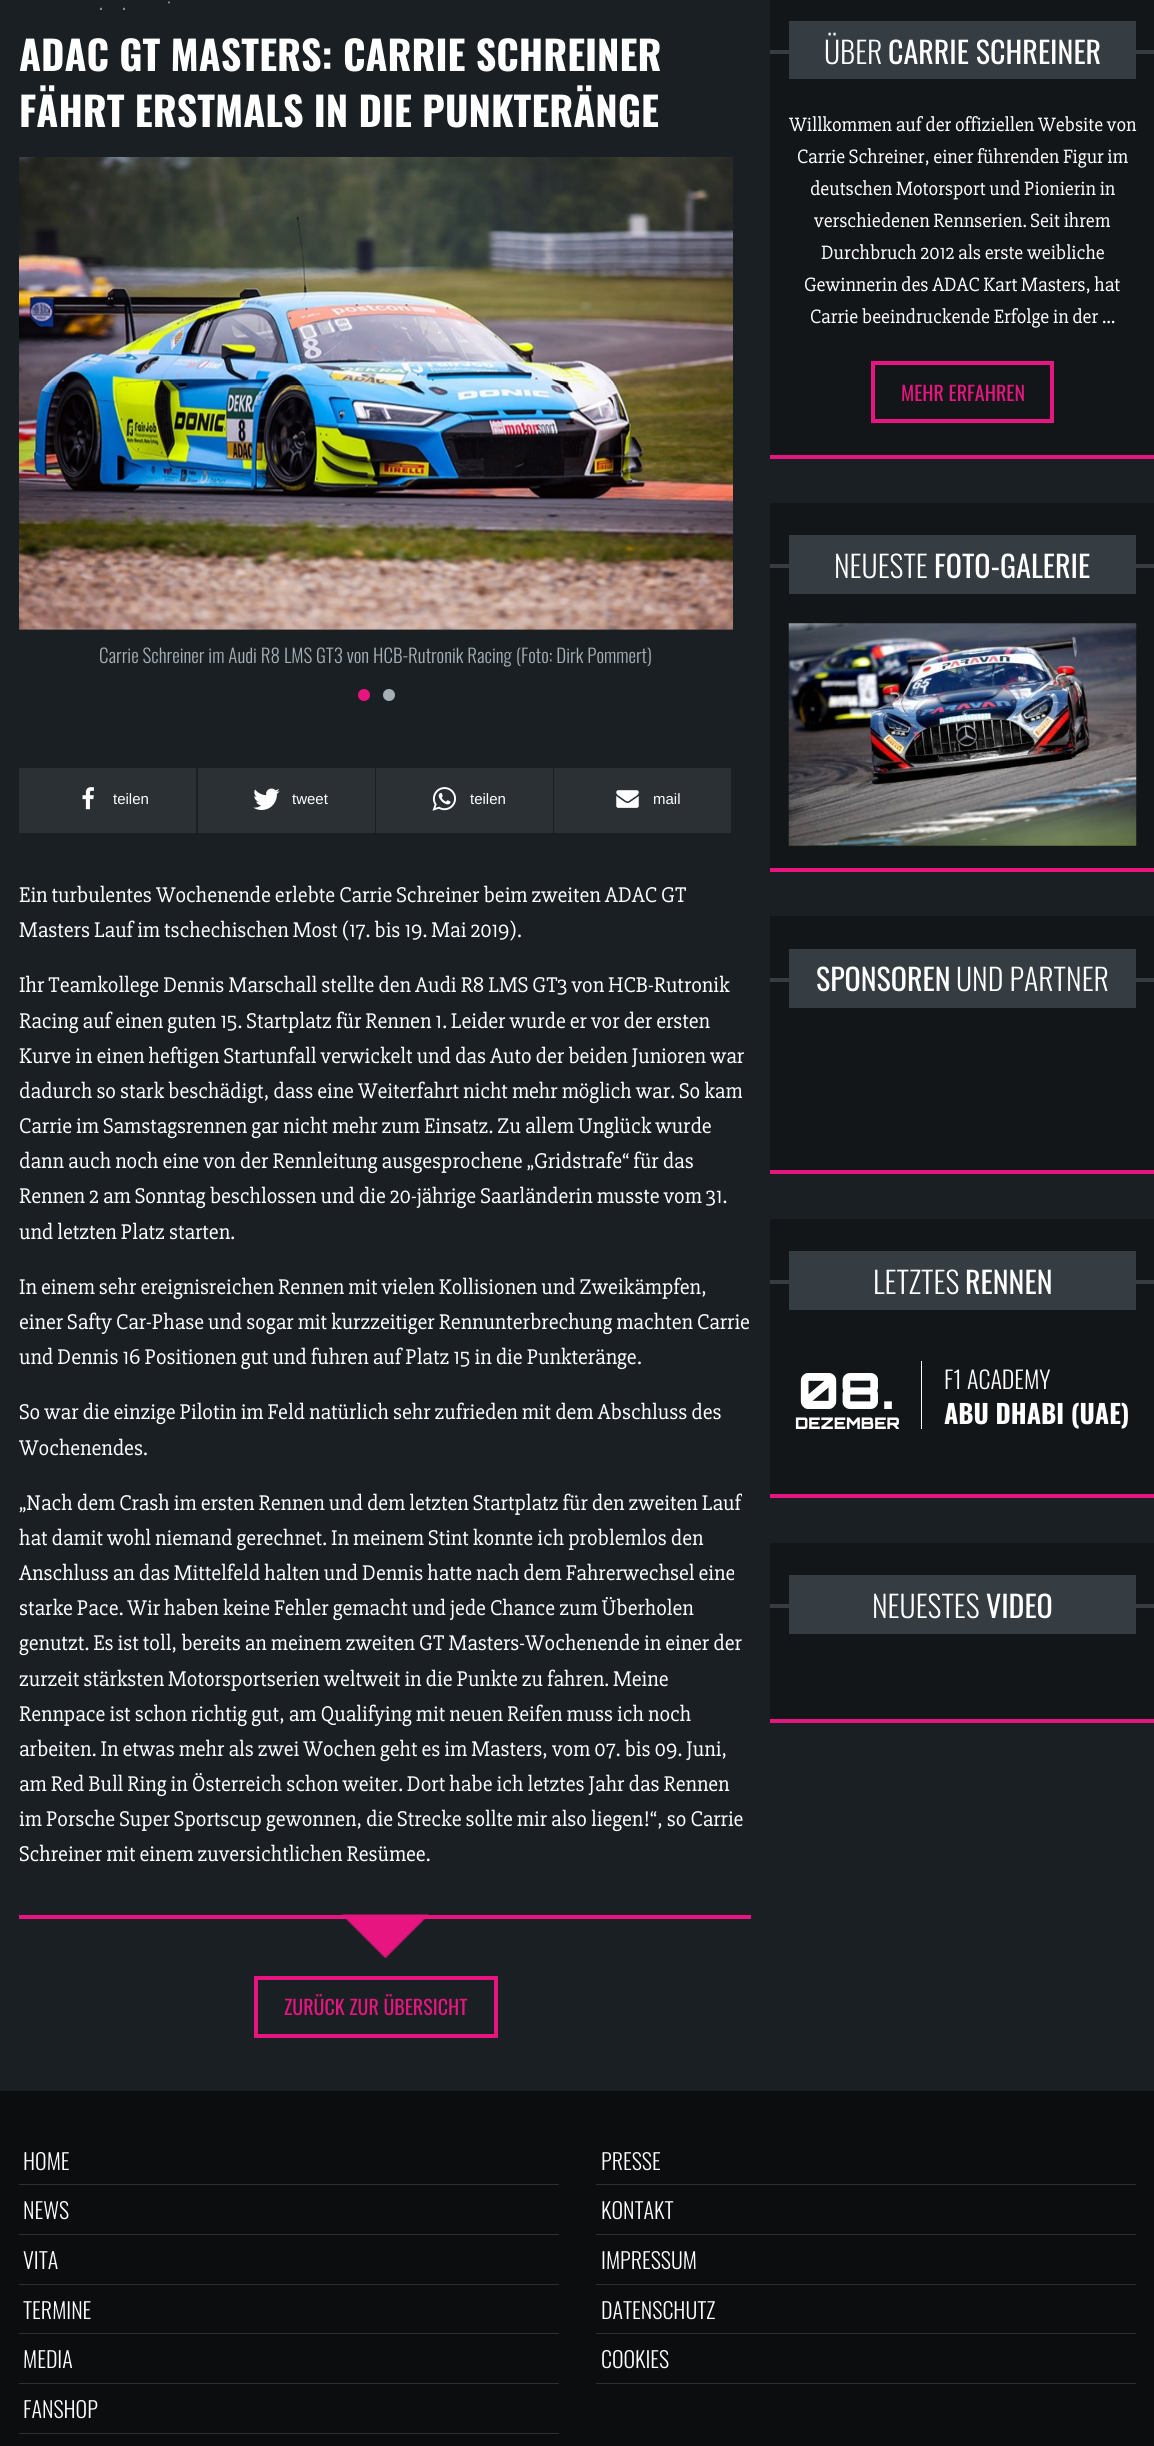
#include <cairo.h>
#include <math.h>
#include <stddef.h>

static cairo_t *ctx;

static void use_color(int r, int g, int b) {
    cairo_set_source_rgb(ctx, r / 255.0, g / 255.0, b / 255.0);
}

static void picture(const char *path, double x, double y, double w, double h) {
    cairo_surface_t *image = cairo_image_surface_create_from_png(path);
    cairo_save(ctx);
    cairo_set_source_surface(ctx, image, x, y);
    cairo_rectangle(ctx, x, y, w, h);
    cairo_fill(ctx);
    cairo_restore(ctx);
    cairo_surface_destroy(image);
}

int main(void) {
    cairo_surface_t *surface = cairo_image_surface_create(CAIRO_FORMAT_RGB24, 1154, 2446);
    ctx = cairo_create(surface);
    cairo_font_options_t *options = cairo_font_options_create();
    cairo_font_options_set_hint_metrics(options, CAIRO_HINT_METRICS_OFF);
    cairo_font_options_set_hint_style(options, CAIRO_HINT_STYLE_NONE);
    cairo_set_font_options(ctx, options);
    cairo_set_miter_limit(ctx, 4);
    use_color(26, 31, 35);
    cairo_paint(ctx);
    cairo_select_font_face(ctx, "Oswald Light", CAIRO_FONT_SLANT_NORMAL, CAIRO_FONT_WEIGHT_NORMAL);
    cairo_set_font_size(ctx, 20);
    use_color(166, 176, 183);
    cairo_move_to(ctx, 167, 10);
    cairo_show_text(ctx, "·");
    cairo_move_to(ctx, 99, 10);
    cairo_show_text(ctx, ".");
    cairo_move_to(ctx, 122, 10);
    cairo_show_text(ctx, ".");
    cairo_select_font_face(ctx, "Oswald", CAIRO_FONT_SLANT_NORMAL, CAIRO_FONT_WEIGHT_BOLD);
    cairo_set_font_size(ctx, 40);
    use_color(255, 255, 255);
    cairo_move_to(ctx, 19, 71);
    cairo_show_text(ctx, "ADAC GT MASTERS: CARRIE SCHREINER");
    cairo_move_to(ctx, 19, 127);
    cairo_show_text(ctx, "FÄHRT ERSTMALS IN DIE PUNKTERÄNGE");
    picture("img1.png", 19, 157, 714, 473);
    cairo_select_font_face(ctx, "Oswald Light", CAIRO_FONT_SLANT_NORMAL, CAIRO_FONT_WEIGHT_NORMAL);
    cairo_set_font_size(ctx, 19);
    use_color(166, 176, 183);
    cairo_move_to(ctx, 99, 663);
    cairo_show_text(ctx, "Carrie Schreiner im Audi R8 LMS GT3 von HCB-Rutronik Racing (Foto: Dirk Pommert)");
    use_color(231, 21, 127);
    cairo_new_path(ctx);
    cairo_arc(ctx, 364, 695, 6, 0, 2 * M_PI);
    cairo_fill(ctx);
    use_color(166, 176, 183);
    cairo_arc(ctx, 389, 695, 6, 0, 2 * M_PI);
    cairo_fill(ctx);
    use_color(42, 48, 52);
    cairo_rectangle(ctx, 19, 768, 177, 65);
    cairo_fill(ctx);
    picture("img2.png", 82, 787, 12, 23);
    cairo_select_font_face(ctx, "Liberation Sans", CAIRO_FONT_SLANT_NORMAL, CAIRO_FONT_WEIGHT_NORMAL);
    cairo_set_font_size(ctx, 15);
    use_color(255, 255, 255);
    cairo_move_to(ctx, 113, 804);
    cairo_show_text(ctx, "teilen");
    use_color(42, 48, 52);
    cairo_rectangle(ctx, 198, 768, 177, 65);
    cairo_fill(ctx);
    picture("img3.png", 253, 788, 27, 22);
    use_color(255, 255, 255);
    cairo_move_to(ctx, 292, 804);
    cairo_show_text(ctx, "tweet");
    use_color(42, 48, 52);
    cairo_rectangle(ctx, 376, 768, 177, 65);
    cairo_fill(ctx);
    picture("img4.png", 432, 787, 25, 24);
    use_color(255, 255, 255);
    cairo_move_to(ctx, 470, 804);
    cairo_show_text(ctx, "teilen");
    use_color(42, 48, 52);
    cairo_rectangle(ctx, 554, 768, 177, 65);
    cairo_fill(ctx);
    picture("img5.png", 616, 790, 23, 18);
    use_color(255, 255, 255);
    cairo_move_to(ctx, 653, 804);
    cairo_show_text(ctx, "mail");
    cairo_select_font_face(ctx, "Slabo 27px", CAIRO_FONT_SLANT_NORMAL, CAIRO_FONT_WEIGHT_NORMAL);
    cairo_set_font_size(ctx, 22);
    cairo_move_to(ctx, 19, 902);
    cairo_show_text(ctx, "Ein turbulentes Wochenende erlebte Carrie Schreiner beim zweiten ADAC GT");
    cairo_move_to(ctx, 19, 937);
    cairo_show_text(ctx, "Masters Lauf im tschechischen Most (17. bis 19. Mai 2019).");
    cairo_move_to(ctx, 19, 992);
    cairo_show_text(ctx, "Ihr Teamkollege Dennis Marschall stellte den Audi R8 LMS GT3 von HCB-Rutronik");
    cairo_move_to(ctx, 19, 1028);
    cairo_show_text(ctx, "Racing auf einen guten 15. Startplatz für Rennen 1. Leider wurde er vor der ersten");
    cairo_move_to(ctx, 19, 1063);
    cairo_show_text(ctx, "Kurve in einen heftigen Startunfall verwickelt und das Auto der beiden Junioren war");
    cairo_move_to(ctx, 19, 1098);
    cairo_show_text(ctx, "dadurch so stark beschädigt, dass eine Weiterfahrt nicht mehr möglich war. So kam");
    cairo_move_to(ctx, 19, 1133);
    cairo_show_text(ctx, "Carrie im Samstagsrennen gar nicht mehr zum Einsatz. Zu allem Unglück wurde");
    cairo_move_to(ctx, 19, 1168);
    cairo_show_text(ctx, "dann auch noch eine von der Rennleitung ausgesprochene „Gridstrafe“ für das");
    cairo_move_to(ctx, 19, 1203);
    cairo_show_text(ctx, "Rennen 2 am Sonntag beschlossen und die 20-jährige Saarländerin musste vom 31.");
    cairo_move_to(ctx, 19, 1239);
    cairo_show_text(ctx, "und letzten Platz starten.");
    cairo_move_to(ctx, 19, 1294);
    cairo_show_text(ctx, "In einem sehr ereignisreichen Rennen mit vielen Kollisionen und Zweikämpfen,");
    cairo_move_to(ctx, 19, 1329);
    cairo_show_text(ctx, "einer Safty Car-Phase und sogar mit kurzzeitiger Rennunterbrechung machten Carrie");
    cairo_move_to(ctx, 19, 1364);
    cairo_show_text(ctx, "und Dennis 16 Positionen gut und fuhren auf Platz 15 in die Punkteränge.");
    cairo_move_to(ctx, 19, 1419);
    cairo_show_text(ctx, "So war die einzige Pilotin im Feld natürlich sehr zufrieden mit dem Abschluss des");
    cairo_move_to(ctx, 19, 1455);
    cairo_show_text(ctx, "Wochenendes.");
    cairo_move_to(ctx, 19, 1510);
    cairo_show_text(ctx, "„Nach dem Crash im ersten Rennen und dem letzten Startplatz für den zweiten Lauf");
    cairo_move_to(ctx, 19, 1545);
    cairo_show_text(ctx, "hat damit wohl niemand gerechnet. In meinem Stint konnte ich problemlos den");
    cairo_move_to(ctx, 19, 1580);
    cairo_show_text(ctx, "Anschluss an das Mittelfeld halten und Dennis hatte nach dem Fahrerwechsel eine");
    cairo_move_to(ctx, 19, 1615);
    cairo_show_text(ctx, "starke Pace. Wir haben keine Fehler gemacht und jede Chance zum Überholen");
    cairo_move_to(ctx, 19, 1650);
    cairo_show_text(ctx, "genutzt. Es ist toll, bereits an meinem zweiten GT Masters-Wochenende in einer der");
    cairo_move_to(ctx, 19, 1686);
    cairo_show_text(ctx, "zurzeit stärksten Motorsportserien weltweit in die Punkte zu fahren. Meine");
    cairo_move_to(ctx, 19, 1721);
    cairo_show_text(ctx, "Rennpace ist schon richtig gut, am Qualifying mit neuen Reifen muss ich noch");
    cairo_move_to(ctx, 19, 1756);
    cairo_show_text(ctx, "arbeiten. In etwas mehr als zwei Wochen geht es im Masters, vom 07. bis 09. Juni,");
    cairo_move_to(ctx, 19, 1791);
    cairo_show_text(ctx, "am Red Bull Ring in Österreich schon weiter. Dort habe ich letztes Jahr das Rennen");
    cairo_move_to(ctx, 19, 1826);
    cairo_show_text(ctx, "im Porsche Super Sportscup gewonnen, die Strecke sollte mir also liegen!“, so Carrie");
    cairo_move_to(ctx, 19, 1861);
    cairo_show_text(ctx, "Schreiner mit einem zuversichtlichen Resümee.");
    picture("img6.png", 341, 1914, 88, 45);
    use_color(231, 21, 127);
    cairo_rectangle(ctx, 19, 1915, 732, 4);
    cairo_fill(ctx);
    cairo_rectangle(ctx, 256, 1978, 240, 58);
    cairo_set_line_width(ctx, 4);
    cairo_stroke(ctx);
    cairo_select_font_face(ctx, "Oswald", CAIRO_FONT_SLANT_NORMAL, CAIRO_FONT_WEIGHT_NORMAL);
    cairo_set_font_size(ctx, 20);
    cairo_move_to(ctx, 284, 2015);
    cairo_show_text(ctx, "ZURÜCK ZUR ÜBERSICHT");
    use_color(19, 22, 25);
    cairo_rectangle(ctx, 770, 0, 384, 455);
    cairo_fill(ctx);
    use_color(231, 21, 127);
    cairo_rectangle(ctx, 770, 455, 384, 4);
    cairo_fill(ctx);
    use_color(53, 61, 66);
    cairo_rectangle(ctx, 789, 21, 347, 58);
    cairo_fill(ctx);
    cairo_rectangle(ctx, 770, 50, 19, 4);
    cairo_fill(ctx);
    cairo_select_font_face(ctx, "Oswald Light", CAIRO_FONT_SLANT_NORMAL, CAIRO_FONT_WEIGHT_NORMAL);
    cairo_set_font_size(ctx, 30);
    use_color(255, 255, 255);
    cairo_move_to(ctx, 824, 64);
    cairo_show_text(ctx, "ÜBER");
    cairo_select_font_face(ctx, "Oswald", CAIRO_FONT_SLANT_NORMAL, CAIRO_FONT_WEIGHT_NORMAL);
    cairo_move_to(ctx, 888, 64);
    cairo_show_text(ctx, "CARRIE SCHREINER");
    use_color(53, 61, 66);
    cairo_rectangle(ctx, 1136, 50, 18, 4);
    cairo_fill(ctx);
    cairo_select_font_face(ctx, "Slabo 27px", CAIRO_FONT_SLANT_NORMAL, CAIRO_FONT_WEIGHT_NORMAL);
    cairo_set_font_size(ctx, 20);
    use_color(255, 255, 255);
    cairo_move_to(ctx, 789, 131);
    cairo_show_text(ctx, "Willkommen auf der offiziellen Website von");
    cairo_move_to(ctx, 797, 163);
    cairo_show_text(ctx, "Carrie Schreiner, einer führenden Figur im");
    cairo_move_to(ctx, 810, 195);
    cairo_show_text(ctx, "deutschen Motorsport und Pionierin in");
    cairo_move_to(ctx, 814, 227);
    cairo_show_text(ctx, "verschiedenen Rennserien. Seit ihrem");
    cairo_move_to(ctx, 821, 259);
    cairo_show_text(ctx, "Durchbruch 2012 als erste weibliche");
    cairo_move_to(ctx, 804, 291);
    cairo_show_text(ctx, "Gewinnerin des ADAC Kart Masters, hat");
    cairo_move_to(ctx, 810, 323);
    cairo_show_text(ctx, "Carrie beeindruckende Erfolge in der …");
    cairo_rectangle(ctx, 873, 363, 179, 58);
    use_color(231, 21, 127);
    cairo_stroke(ctx);
    cairo_select_font_face(ctx, "Oswald", CAIRO_FONT_SLANT_NORMAL, CAIRO_FONT_WEIGHT_NORMAL);
    cairo_move_to(ctx, 901, 401);
    cairo_show_text(ctx, "MEHR ERFAHREN");
    use_color(19, 22, 25);
    cairo_rectangle(ctx, 770, 503, 384, 365);
    cairo_fill(ctx);
    use_color(231, 21, 127);
    cairo_rectangle(ctx, 770, 868, 384, 4);
    cairo_fill(ctx);
    use_color(53, 61, 66);
    cairo_rectangle(ctx, 789, 535, 347, 59);
    cairo_fill(ctx);
    cairo_rectangle(ctx, 770, 564, 19, 4);
    cairo_fill(ctx);
    cairo_select_font_face(ctx, "Oswald Light", CAIRO_FONT_SLANT_NORMAL, CAIRO_FONT_WEIGHT_NORMAL);
    cairo_set_font_size(ctx, 30);
    use_color(255, 255, 255);
    cairo_move_to(ctx, 834, 578);
    cairo_show_text(ctx, "NEUESTE");
    cairo_select_font_face(ctx, "Oswald", CAIRO_FONT_SLANT_NORMAL, CAIRO_FONT_WEIGHT_NORMAL);
    cairo_move_to(ctx, 934, 578);
    cairo_show_text(ctx, "FOTO-GALERIE");
    use_color(53, 61, 66);
    cairo_rectangle(ctx, 1136, 564, 18, 4);
    cairo_fill(ctx);
    picture("img7.png", 788, 623, 349, 223);
    use_color(19, 22, 25);
    cairo_rectangle(ctx, 770, 916, 384, 254);
    cairo_fill(ctx);
    use_color(231, 21, 127);
    cairo_rectangle(ctx, 770, 1170, 384, 4);
    cairo_fill(ctx);
    use_color(53, 61, 66);
    cairo_rectangle(ctx, 789, 949, 347, 59);
    cairo_fill(ctx);
    cairo_rectangle(ctx, 770, 978, 19, 4);
    cairo_fill(ctx);
    use_color(255, 255, 255);
    cairo_move_to(ctx, 816, 991);
    cairo_show_text(ctx, "SPONSOREN");
    cairo_select_font_face(ctx, "Oswald Light", CAIRO_FONT_SLANT_NORMAL, CAIRO_FONT_WEIGHT_NORMAL);
    cairo_move_to(ctx, 956, 991);
    cairo_show_text(ctx, "UND PARTNER");
    use_color(53, 61, 66);
    cairo_rectangle(ctx, 1136, 978, 18, 4);
    cairo_fill(ctx);
    use_color(19, 22, 25);
    cairo_rectangle(ctx, 770, 1219, 384, 275);
    cairo_fill(ctx);
    use_color(231, 21, 127);
    cairo_rectangle(ctx, 770, 1494, 384, 4);
    cairo_fill(ctx);
    use_color(53, 61, 66);
    cairo_rectangle(ctx, 789, 1251, 347, 59);
    cairo_fill(ctx);
    cairo_rectangle(ctx, 770, 1280, 19, 4);
    cairo_fill(ctx);
    use_color(255, 255, 255);
    cairo_move_to(ctx, 873, 1294);
    cairo_show_text(ctx, "LETZTES");
    cairo_select_font_face(ctx, "Oswald", CAIRO_FONT_SLANT_NORMAL, CAIRO_FONT_WEIGHT_NORMAL);
    cairo_move_to(ctx, 965, 1294);
    cairo_show_text(ctx, "RENNEN");
    use_color(53, 61, 66);
    cairo_rectangle(ctx, 1136, 1280, 18, 4);
    cairo_fill(ctx);
    cairo_select_font_face(ctx, "Orbitron Black", CAIRO_FONT_SLANT_NORMAL, CAIRO_FONT_WEIGHT_NORMAL);
    cairo_set_font_size(ctx, 50);
    use_color(255, 255, 255);
    cairo_move_to(ctx, 798, 1409);
    cairo_show_text(ctx, "08.");
    cairo_set_font_size(ctx, 16);
    cairo_move_to(ctx, 795, 1429);
    cairo_show_text(ctx, "DEZEMBER");
    cairo_rectangle(ctx, 921, 1361, 1, 68);
    cairo_fill(ctx);
    cairo_select_font_face(ctx, "Oswald Light", CAIRO_FONT_SLANT_NORMAL, CAIRO_FONT_WEIGHT_NORMAL);
    cairo_set_font_size(ctx, 24);
    cairo_move_to(ctx, 944, 1389);
    cairo_show_text(ctx, "F1 ACADEMY");
    cairo_select_font_face(ctx, "Oswald", CAIRO_FONT_SLANT_NORMAL, CAIRO_FONT_WEIGHT_BOLD);
    cairo_set_font_size(ctx, 26);
    cairo_move_to(ctx, 944, 1424);
    cairo_show_text(ctx, "ABU DHABI (UAE)");
    use_color(19, 22, 25);
    cairo_rectangle(ctx, 770, 1543, 384, 176);
    cairo_fill(ctx);
    use_color(231, 21, 127);
    cairo_rectangle(ctx, 770, 1719, 384, 4);
    cairo_fill(ctx);
    use_color(53, 61, 66);
    cairo_rectangle(ctx, 789, 1575, 347, 59);
    cairo_fill(ctx);
    cairo_rectangle(ctx, 770, 1604, 19, 4);
    cairo_fill(ctx);
    cairo_select_font_face(ctx, "Oswald Light", CAIRO_FONT_SLANT_NORMAL, CAIRO_FONT_WEIGHT_NORMAL);
    cairo_set_font_size(ctx, 30);
    use_color(255, 255, 255);
    cairo_move_to(ctx, 872, 1618);
    cairo_show_text(ctx, "NEUESTES");
    cairo_select_font_face(ctx, "Oswald", CAIRO_FONT_SLANT_NORMAL, CAIRO_FONT_WEIGHT_NORMAL);
    cairo_move_to(ctx, 986, 1618);
    cairo_show_text(ctx, "VIDEO");
    use_color(53, 61, 66);
    cairo_rectangle(ctx, 1136, 1604, 18, 4);
    cairo_fill(ctx);
    use_color(11, 13, 15);
    cairo_rectangle(ctx, 0, 2091, 1154, 355);
    cairo_fill(ctx);
    use_color(42, 48, 52);
    cairo_rectangle(ctx, 19, 2184, 540, 1);
    cairo_fill(ctx);
    cairo_select_font_face(ctx, "Oswald Light", CAIRO_FONT_SLANT_NORMAL, CAIRO_FONT_WEIGHT_NORMAL);
    cairo_set_font_size(ctx, 22);
    use_color(255, 255, 255);
    cairo_move_to(ctx, 23, 2170);
    cairo_show_text(ctx, "HOME");
    use_color(42, 48, 52);
    cairo_rectangle(ctx, 19, 2234, 540, 1);
    cairo_fill(ctx);
    use_color(255, 255, 255);
    cairo_move_to(ctx, 23, 2219);
    cairo_show_text(ctx, "NEWS");
    use_color(42, 48, 52);
    cairo_rectangle(ctx, 19, 2284, 540, 1);
    cairo_fill(ctx);
    use_color(255, 255, 255);
    cairo_move_to(ctx, 23, 2269);
    cairo_show_text(ctx, "VITA");
    use_color(42, 48, 52);
    cairo_rectangle(ctx, 19, 2333, 540, 1);
    cairo_fill(ctx);
    use_color(255, 255, 255);
    cairo_move_to(ctx, 23, 2319);
    cairo_show_text(ctx, "TERMINE");
    use_color(42, 48, 52);
    cairo_rectangle(ctx, 19, 2383, 540, 1);
    cairo_fill(ctx);
    use_color(255, 255, 255);
    cairo_move_to(ctx, 23, 2368);
    cairo_show_text(ctx, "MEDIA");
    use_color(42, 48, 52);
    cairo_rectangle(ctx, 19, 2433, 540, 1);
    cairo_fill(ctx);
    use_color(255, 255, 255);
    cairo_move_to(ctx, 23, 2418);
    cairo_show_text(ctx, "FANSHOP");
    use_color(42, 48, 52);
    cairo_rectangle(ctx, 596, 2184, 540, 1);
    cairo_fill(ctx);
    use_color(255, 255, 255);
    cairo_move_to(ctx, 601, 2170);
    cairo_show_text(ctx, "PRESSE");
    use_color(42, 48, 52);
    cairo_rectangle(ctx, 596, 2234, 540, 1);
    cairo_fill(ctx);
    use_color(255, 255, 255);
    cairo_move_to(ctx, 601, 2219);
    cairo_show_text(ctx, "KONTAKT");
    use_color(42, 48, 52);
    cairo_rectangle(ctx, 596, 2284, 540, 1);
    cairo_fill(ctx);
    use_color(255, 255, 255);
    cairo_move_to(ctx, 601, 2269);
    cairo_show_text(ctx, "IMPRESSUM");
    use_color(42, 48, 52);
    cairo_rectangle(ctx, 596, 2333, 540, 1);
    cairo_fill(ctx);
    use_color(255, 255, 255);
    cairo_move_to(ctx, 601, 2319);
    cairo_show_text(ctx, "DATENSCHUTZ");
    use_color(42, 48, 52);
    cairo_rectangle(ctx, 596, 2383, 540, 1);
    cairo_fill(ctx);
    use_color(255, 255, 255);
    cairo_move_to(ctx, 601, 2368);
    cairo_show_text(ctx, "COOKIES");
    cairo_surface_write_to_png(surface, "result.png");
    cairo_font_options_destroy(options);
    cairo_destroy(ctx);
    cairo_surface_destroy(surface);
    return 0;
}
